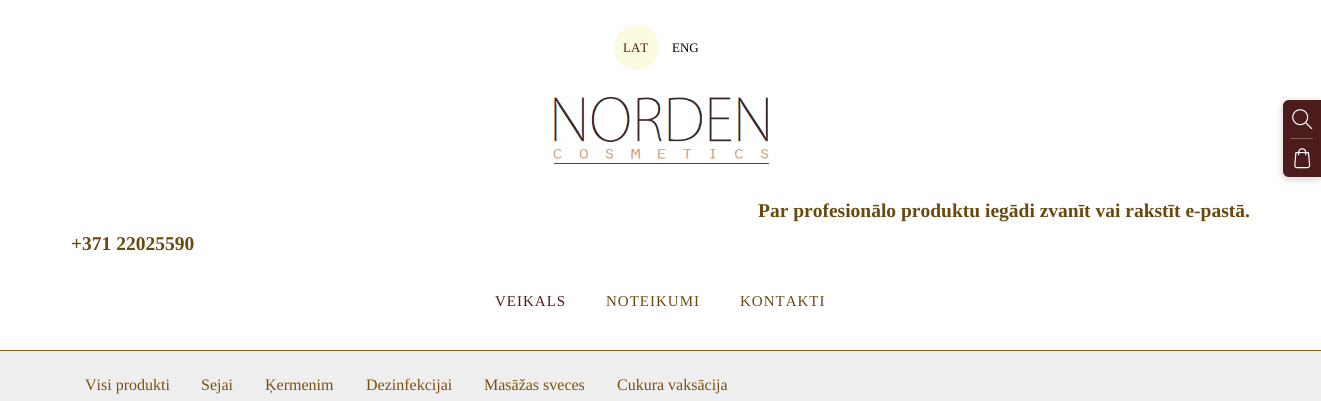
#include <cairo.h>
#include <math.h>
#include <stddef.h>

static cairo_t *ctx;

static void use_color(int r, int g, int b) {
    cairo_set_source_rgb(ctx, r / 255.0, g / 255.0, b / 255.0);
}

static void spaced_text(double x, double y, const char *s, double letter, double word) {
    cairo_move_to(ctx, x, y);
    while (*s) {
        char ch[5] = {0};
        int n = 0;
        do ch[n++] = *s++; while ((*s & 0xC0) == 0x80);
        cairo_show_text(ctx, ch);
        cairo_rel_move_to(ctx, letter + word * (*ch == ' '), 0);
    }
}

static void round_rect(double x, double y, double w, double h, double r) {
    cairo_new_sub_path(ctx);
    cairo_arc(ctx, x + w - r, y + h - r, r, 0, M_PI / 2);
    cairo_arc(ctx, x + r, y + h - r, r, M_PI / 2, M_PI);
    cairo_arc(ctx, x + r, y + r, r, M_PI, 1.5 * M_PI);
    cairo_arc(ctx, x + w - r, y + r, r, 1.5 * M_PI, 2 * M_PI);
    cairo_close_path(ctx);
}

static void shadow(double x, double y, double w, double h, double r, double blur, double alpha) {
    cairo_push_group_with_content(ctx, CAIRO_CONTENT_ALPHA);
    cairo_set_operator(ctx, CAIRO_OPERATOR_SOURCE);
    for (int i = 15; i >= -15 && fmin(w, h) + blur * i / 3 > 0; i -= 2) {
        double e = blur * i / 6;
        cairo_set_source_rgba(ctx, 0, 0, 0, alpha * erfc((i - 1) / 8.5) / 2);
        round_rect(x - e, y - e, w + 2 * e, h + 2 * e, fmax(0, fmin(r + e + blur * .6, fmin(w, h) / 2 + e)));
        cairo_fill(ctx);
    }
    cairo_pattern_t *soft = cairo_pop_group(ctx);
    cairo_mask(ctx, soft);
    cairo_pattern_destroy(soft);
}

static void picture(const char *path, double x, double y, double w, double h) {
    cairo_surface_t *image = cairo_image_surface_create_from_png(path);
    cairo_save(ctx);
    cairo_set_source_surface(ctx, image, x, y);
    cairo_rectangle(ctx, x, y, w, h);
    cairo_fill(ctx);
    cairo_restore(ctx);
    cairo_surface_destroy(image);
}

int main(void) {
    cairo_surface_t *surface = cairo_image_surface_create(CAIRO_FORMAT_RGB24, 1321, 401);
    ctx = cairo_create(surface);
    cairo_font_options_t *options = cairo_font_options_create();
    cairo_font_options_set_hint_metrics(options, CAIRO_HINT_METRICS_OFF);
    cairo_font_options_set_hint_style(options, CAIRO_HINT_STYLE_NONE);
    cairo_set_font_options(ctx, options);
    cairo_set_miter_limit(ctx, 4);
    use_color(255, 255, 255);
    cairo_paint(ctx);
    use_color(134, 91, 26);
    cairo_rectangle(ctx, 0, 350, 1321, 1);
    cairo_fill(ctx);
    use_color(252, 250, 225);
    cairo_arc(ctx, 636.5, 47.5, 22.5, 0, 2 * M_PI);
    cairo_fill(ctx);
    cairo_select_font_face(ctx, "Liberation Serif", CAIRO_FONT_SLANT_NORMAL, CAIRO_FONT_WEIGHT_NORMAL);
    cairo_set_font_size(ctx, 13);
    use_color(76, 27, 27);
    cairo_move_to(ctx, 623, 52);
    cairo_show_text(ctx, "LAT");
    use_color(0, 0, 0);
    cairo_move_to(ctx, 672, 52);
    cairo_show_text(ctx, "ENG");
    picture("img1.png", 553, 96, 216, 68);
    cairo_select_font_face(ctx, "Liberation Serif", CAIRO_FONT_SLANT_NORMAL, CAIRO_FONT_WEIGHT_BOLD);
    cairo_set_font_size(ctx, 19.5);
    use_color(106, 73, 17);
    cairo_move_to(ctx, 758, 217);
    cairo_show_text(ctx, "Par profesionālo produktu iegādi zvanīt vai rakstīt e-pastā.");
    cairo_move_to(ctx, 71, 250);
    cairo_show_text(ctx, "+371 22025590");
    cairo_select_font_face(ctx, "Liberation Serif", CAIRO_FONT_SLANT_NORMAL, CAIRO_FONT_WEIGHT_NORMAL);
    cairo_set_font_size(ctx, 15);
    use_color(76, 27, 27);
    spaced_text(495, 306, "VEIKALS", 1, 0);
    use_color(106, 73, 17);
    spaced_text(606, 306, "NOTEIKUMI", 1, 0);
    spaced_text(740, 306, "KONTAKTI", 1, 0);
    use_color(0, 0, 0);
    shadow(1280, 99, 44, 83, 9, 2.5, 0.1);
    use_color(76, 27, 27);
    cairo_new_path(ctx);
    cairo_move_to(ctx, 1289, 100);
    cairo_line_to(ctx, 1321, 100);
    cairo_line_to(ctx, 1321, 177);
    cairo_line_to(ctx, 1289, 177);
    cairo_curve_to(ctx, 1285.5, 177, 1283, 174.5, 1283, 171);
    cairo_line_to(ctx, 1283, 106);
    cairo_curve_to(ctx, 1283, 102.5, 1285.5, 100, 1289, 100);
    cairo_close_path(ctx);
    cairo_fill(ctx);
    picture("img2.png", 1292, 109, 21, 21);
    use_color(130, 95, 95);
    cairo_rectangle(ctx, 1290, 138, 23, 1);
    cairo_fill(ctx);
    picture("img3.png", 1294, 148, 17, 21);
    use_color(238, 238, 238);
    cairo_rectangle(ctx, 0, 351, 1321, 50);
    cairo_fill(ctx);
    cairo_set_font_size(ctx, 16);
    use_color(124, 79, 12);
    cairo_move_to(ctx, 85, 390);
    cairo_show_text(ctx, "Visi produkti");
    cairo_move_to(ctx, 201, 390);
    cairo_show_text(ctx, "Sejai");
    cairo_move_to(ctx, 265, 390);
    cairo_show_text(ctx, "Ķermenim");
    cairo_move_to(ctx, 366, 390);
    cairo_show_text(ctx, "Dezinfekcijai");
    cairo_move_to(ctx, 484, 390);
    cairo_show_text(ctx, "Masāžas sveces");
    cairo_move_to(ctx, 617, 390);
    cairo_show_text(ctx, "Cukura vaksācija");
    cairo_surface_write_to_png(surface, "result.png");
    cairo_font_options_destroy(options);
    cairo_destroy(ctx);
    cairo_surface_destroy(surface);
    return 0;
}
